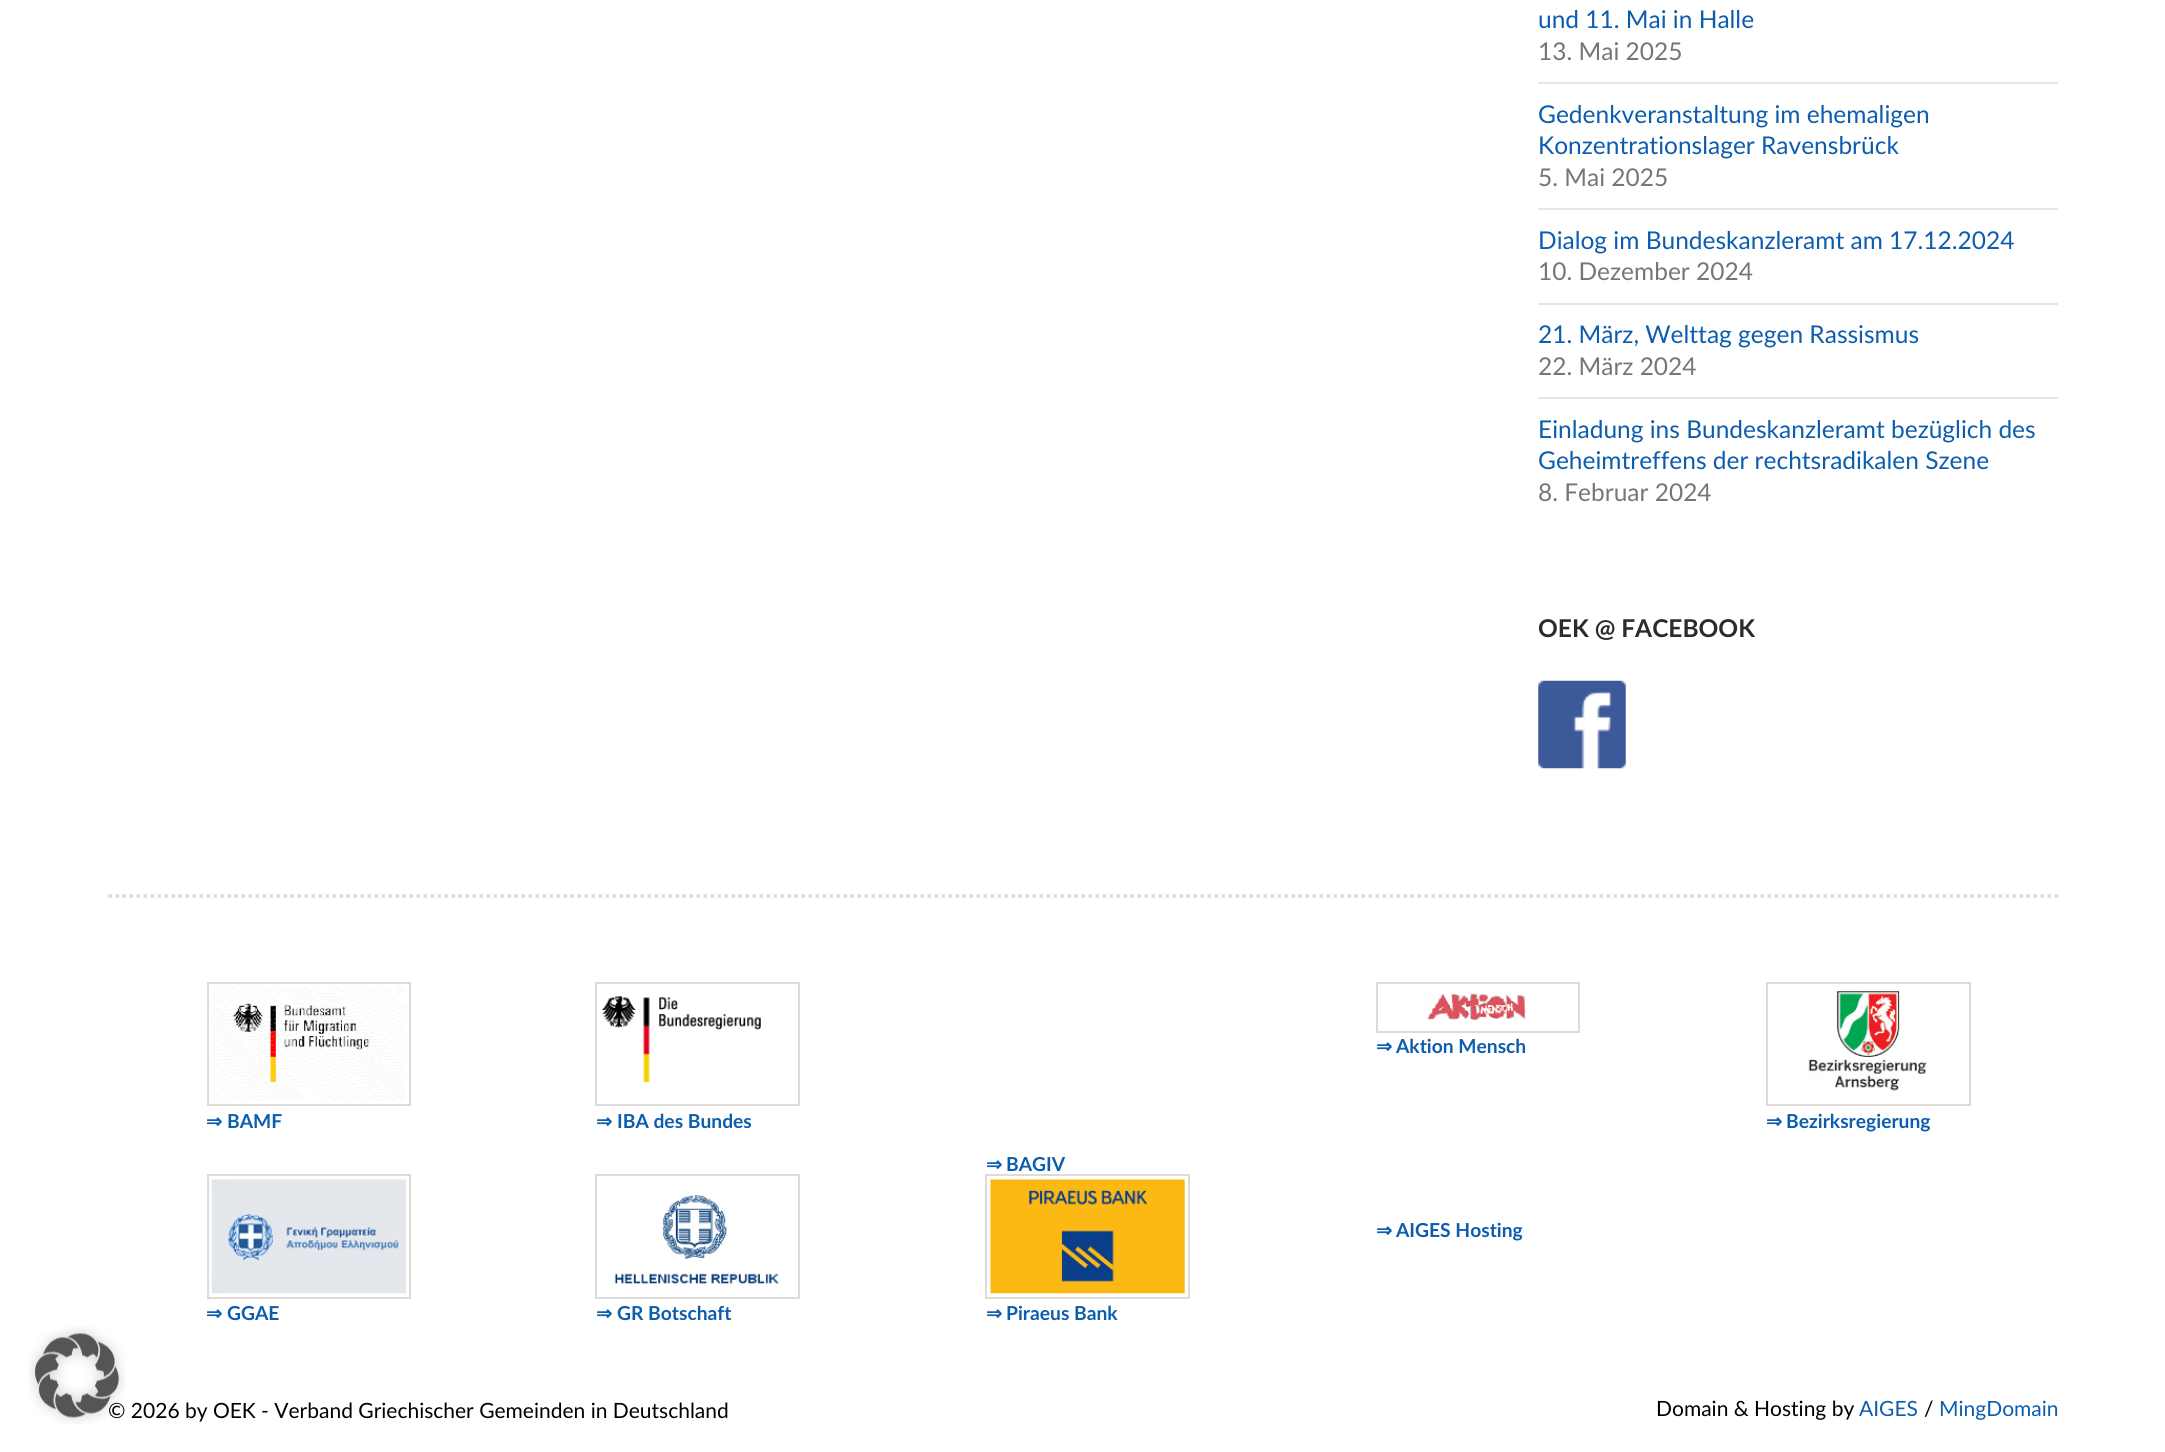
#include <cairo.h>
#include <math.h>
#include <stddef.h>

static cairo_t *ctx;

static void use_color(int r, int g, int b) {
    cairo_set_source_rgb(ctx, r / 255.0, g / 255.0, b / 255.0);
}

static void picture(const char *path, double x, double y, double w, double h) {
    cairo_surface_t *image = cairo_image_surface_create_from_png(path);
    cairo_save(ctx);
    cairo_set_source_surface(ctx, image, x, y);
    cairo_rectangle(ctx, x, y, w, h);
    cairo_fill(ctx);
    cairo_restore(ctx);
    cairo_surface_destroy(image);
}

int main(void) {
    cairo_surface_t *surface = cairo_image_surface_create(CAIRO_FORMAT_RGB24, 2165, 1452);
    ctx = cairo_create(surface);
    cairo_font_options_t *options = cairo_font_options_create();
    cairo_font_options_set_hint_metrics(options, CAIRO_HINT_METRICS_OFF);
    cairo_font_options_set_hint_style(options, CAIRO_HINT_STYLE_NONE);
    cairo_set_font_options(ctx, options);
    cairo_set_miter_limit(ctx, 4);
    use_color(255, 255, 255);
    cairo_paint(ctx);
    cairo_select_font_face(ctx, "Lato", CAIRO_FONT_SLANT_NORMAL, CAIRO_FONT_WEIGHT_NORMAL);
    cairo_set_font_size(ctx, 21);
    use_color(0, 0, 0);
    cairo_move_to(ctx, 108, 1418);
    cairo_show_text(ctx, "© 2026 by OEK - Verband Griechischer Gemeinden in Deutschland");
    picture("img1.png", 28, 1326, 98, 98);
    cairo_set_font_size(ctx, 24.5);
    use_color(12, 93, 174);
    cairo_move_to(ctx, 1538, 28);
    cairo_show_text(ctx, "und 11. Mai in Halle");
    use_color(118, 118, 118);
    cairo_move_to(ctx, 1538, 60);
    cairo_show_text(ctx, "13. Mai 2025");
    use_color(230, 230, 230);
    cairo_rectangle(ctx, 1538, 82, 520, 2);
    cairo_fill(ctx);
    use_color(12, 93, 174);
    cairo_move_to(ctx, 1538, 123);
    cairo_show_text(ctx, "Gedenkveranstaltung im ehemaligen");
    cairo_move_to(ctx, 1538, 154);
    cairo_show_text(ctx, "Konzentrationslager Ravensbrück");
    use_color(118, 118, 118);
    cairo_move_to(ctx, 1538, 186);
    cairo_show_text(ctx, "5. Mai 2025");
    use_color(230, 230, 230);
    cairo_rectangle(ctx, 1538, 208, 520, 2);
    cairo_fill(ctx);
    use_color(12, 93, 174);
    cairo_move_to(ctx, 1538, 249);
    cairo_show_text(ctx, "Dialog im Bundeskanzleramt am 17.12.2024");
    use_color(118, 118, 118);
    cairo_move_to(ctx, 1538, 280);
    cairo_show_text(ctx, "10. Dezember 2024");
    use_color(230, 230, 230);
    cairo_rectangle(ctx, 1538, 303, 520, 2);
    cairo_fill(ctx);
    use_color(12, 93, 174);
    cairo_move_to(ctx, 1538, 343);
    cairo_show_text(ctx, "21. März, Welttag gegen Rassismus");
    use_color(118, 118, 118);
    cairo_move_to(ctx, 1538, 375);
    cairo_show_text(ctx, "22. März 2024");
    use_color(230, 230, 230);
    cairo_rectangle(ctx, 1538, 397, 520, 2);
    cairo_fill(ctx);
    use_color(12, 93, 174);
    cairo_move_to(ctx, 1538, 438);
    cairo_show_text(ctx, "Einladung ins Bundeskanzleramt bezüglich des");
    cairo_move_to(ctx, 1538, 469);
    cairo_show_text(ctx, "Geheimtreffens der rechtsradikalen Szene");
    use_color(118, 118, 118);
    cairo_move_to(ctx, 1538, 501);
    cairo_show_text(ctx, "8. Februar 2024");
    cairo_select_font_face(ctx, "Lato", CAIRO_FONT_SLANT_NORMAL, CAIRO_FONT_WEIGHT_BOLD);
    use_color(43, 43, 43);
    cairo_move_to(ctx, 1538, 637);
    cairo_show_text(ctx, "OEK @ FACEBOOK");
    picture("img2.png", 1538, 680, 88, 89);
    cairo_new_path(ctx);
    cairo_move_to(ctx, 108.5, 896);
    cairo_line_to(ctx, 2058, 896);
    use_color(221, 218, 216);
    cairo_set_line_width(ctx, 3.5);
    cairo_set_dash(ctx, (double[]){3.5, 3.5}, 2, 0);
    cairo_stroke(ctx);
    cairo_rectangle(ctx, 1377, 983, 202, 49);
    cairo_set_line_width(ctx, 2);
    cairo_set_dash(ctx, NULL, 0, 0);
    cairo_stroke(ctx);
    picture("img3.png", 1427, 993, 99, 27);
    cairo_select_font_face(ctx, "DejaVu Sans", CAIRO_FONT_SLANT_NORMAL, CAIRO_FONT_WEIGHT_BOLD);
    cairo_set_font_size(ctx, 19.25);
    use_color(12, 93, 174);
    cairo_move_to(ctx, 1376, 1053);
    cairo_show_text(ctx, "⇒");
    cairo_select_font_face(ctx, "Lato", CAIRO_FONT_SLANT_NORMAL, CAIRO_FONT_WEIGHT_BOLD);
    cairo_move_to(ctx, 1396, 1053);
    cairo_show_text(ctx, "Aktion Mensch");
    cairo_rectangle(ctx, 208, 983, 202, 122);
    use_color(221, 218, 216);
    cairo_stroke(ctx);
    picture("img4.png", 212, 987, 194, 114);
    cairo_select_font_face(ctx, "DejaVu Sans", CAIRO_FONT_SLANT_NORMAL, CAIRO_FONT_WEIGHT_BOLD);
    use_color(12, 93, 174);
    cairo_move_to(ctx, 206, 1128);
    cairo_show_text(ctx, "⇒");
    cairo_select_font_face(ctx, "Lato", CAIRO_FONT_SLANT_NORMAL, CAIRO_FONT_WEIGHT_BOLD);
    cairo_move_to(ctx, 227, 1128);
    cairo_show_text(ctx, "BAMF");
    cairo_rectangle(ctx, 596, 983, 203, 122);
    use_color(221, 218, 216);
    cairo_stroke(ctx);
    picture("img5.png", 602, 996, 159, 86);
    cairo_select_font_face(ctx, "DejaVu Sans", CAIRO_FONT_SLANT_NORMAL, CAIRO_FONT_WEIGHT_BOLD);
    use_color(12, 93, 174);
    cairo_move_to(ctx, 596, 1128);
    cairo_show_text(ctx, "⇒");
    cairo_select_font_face(ctx, "Lato", CAIRO_FONT_SLANT_NORMAL, CAIRO_FONT_WEIGHT_BOLD);
    cairo_move_to(ctx, 617, 1128);
    cairo_show_text(ctx, "IBA des Bundes");
    cairo_rectangle(ctx, 1767, 983, 203, 122);
    use_color(221, 218, 216);
    cairo_stroke(ctx);
    picture("img6.png", 1808, 991, 119, 100);
    cairo_select_font_face(ctx, "DejaVu Sans", CAIRO_FONT_SLANT_NORMAL, CAIRO_FONT_WEIGHT_BOLD);
    use_color(12, 93, 174);
    cairo_move_to(ctx, 1766, 1128);
    cairo_show_text(ctx, "⇒");
    cairo_select_font_face(ctx, "Lato", CAIRO_FONT_SLANT_NORMAL, CAIRO_FONT_WEIGHT_BOLD);
    cairo_move_to(ctx, 1786, 1128);
    cairo_show_text(ctx, "Bezirksregierung");
    cairo_select_font_face(ctx, "DejaVu Sans", CAIRO_FONT_SLANT_NORMAL, CAIRO_FONT_WEIGHT_BOLD);
    cairo_move_to(ctx, 986, 1171);
    cairo_show_text(ctx, "⇒");
    cairo_select_font_face(ctx, "Lato", CAIRO_FONT_SLANT_NORMAL, CAIRO_FONT_WEIGHT_BOLD);
    cairo_move_to(ctx, 1006, 1171);
    cairo_show_text(ctx, "BAGIV");
    cairo_select_font_face(ctx, "DejaVu Sans", CAIRO_FONT_SLANT_NORMAL, CAIRO_FONT_WEIGHT_BOLD);
    cairo_move_to(ctx, 1376, 1237);
    cairo_show_text(ctx, "⇒");
    cairo_select_font_face(ctx, "Lato", CAIRO_FONT_SLANT_NORMAL, CAIRO_FONT_WEIGHT_BOLD);
    cairo_move_to(ctx, 1396, 1237);
    cairo_show_text(ctx, "AIGES Hosting");
    cairo_rectangle(ctx, 208, 1175, 202, 123);
    use_color(221, 218, 216);
    cairo_stroke(ctx);
    picture("img7.png", 211, 1179, 195, 115);
    cairo_select_font_face(ctx, "DejaVu Sans", CAIRO_FONT_SLANT_NORMAL, CAIRO_FONT_WEIGHT_BOLD);
    use_color(12, 93, 174);
    cairo_move_to(ctx, 206, 1320);
    cairo_show_text(ctx, "⇒");
    cairo_select_font_face(ctx, "Lato", CAIRO_FONT_SLANT_NORMAL, CAIRO_FONT_WEIGHT_BOLD);
    cairo_move_to(ctx, 227, 1320);
    cairo_show_text(ctx, "GGAE");
    cairo_rectangle(ctx, 596, 1175, 203, 123);
    use_color(221, 218, 216);
    cairo_stroke(ctx);
    picture("img8.png", 614, 1193, 165, 91);
    cairo_select_font_face(ctx, "DejaVu Sans", CAIRO_FONT_SLANT_NORMAL, CAIRO_FONT_WEIGHT_BOLD);
    use_color(12, 93, 174);
    cairo_move_to(ctx, 596, 1320);
    cairo_show_text(ctx, "⇒");
    cairo_select_font_face(ctx, "Lato", CAIRO_FONT_SLANT_NORMAL, CAIRO_FONT_WEIGHT_BOLD);
    cairo_move_to(ctx, 617, 1320);
    cairo_show_text(ctx, "GR Botschaft");
    cairo_rectangle(ctx, 986, 1175, 203, 123);
    use_color(221, 218, 216);
    cairo_stroke(ctx);
    picture("img9.png", 990, 1179, 195, 115);
    cairo_select_font_face(ctx, "DejaVu Sans", CAIRO_FONT_SLANT_NORMAL, CAIRO_FONT_WEIGHT_BOLD);
    use_color(12, 93, 174);
    cairo_move_to(ctx, 986, 1320);
    cairo_show_text(ctx, "⇒");
    cairo_select_font_face(ctx, "Lato", CAIRO_FONT_SLANT_NORMAL, CAIRO_FONT_WEIGHT_BOLD);
    cairo_move_to(ctx, 1006, 1320);
    cairo_show_text(ctx, "Piraeus Bank");
    cairo_select_font_face(ctx, "Lato", CAIRO_FONT_SLANT_NORMAL, CAIRO_FONT_WEIGHT_NORMAL);
    cairo_set_font_size(ctx, 21);
    use_color(0, 0, 0);
    cairo_move_to(ctx, 1656, 1416);
    cairo_show_text(ctx, "Domain & Hosting by");
    use_color(12, 93, 174);
    cairo_move_to(ctx, 1859, 1416);
    cairo_show_text(ctx, "AIGES");
    use_color(0, 0, 0);
    cairo_move_to(ctx, 1924, 1416);
    cairo_show_text(ctx, "/");
    use_color(12, 93, 174);
    cairo_move_to(ctx, 1939, 1416);
    cairo_show_text(ctx, "MingDomain");
    cairo_surface_write_to_png(surface, "result.png");
    cairo_font_options_destroy(options);
    cairo_destroy(ctx);
    cairo_surface_destroy(surface);
    return 0;
}
